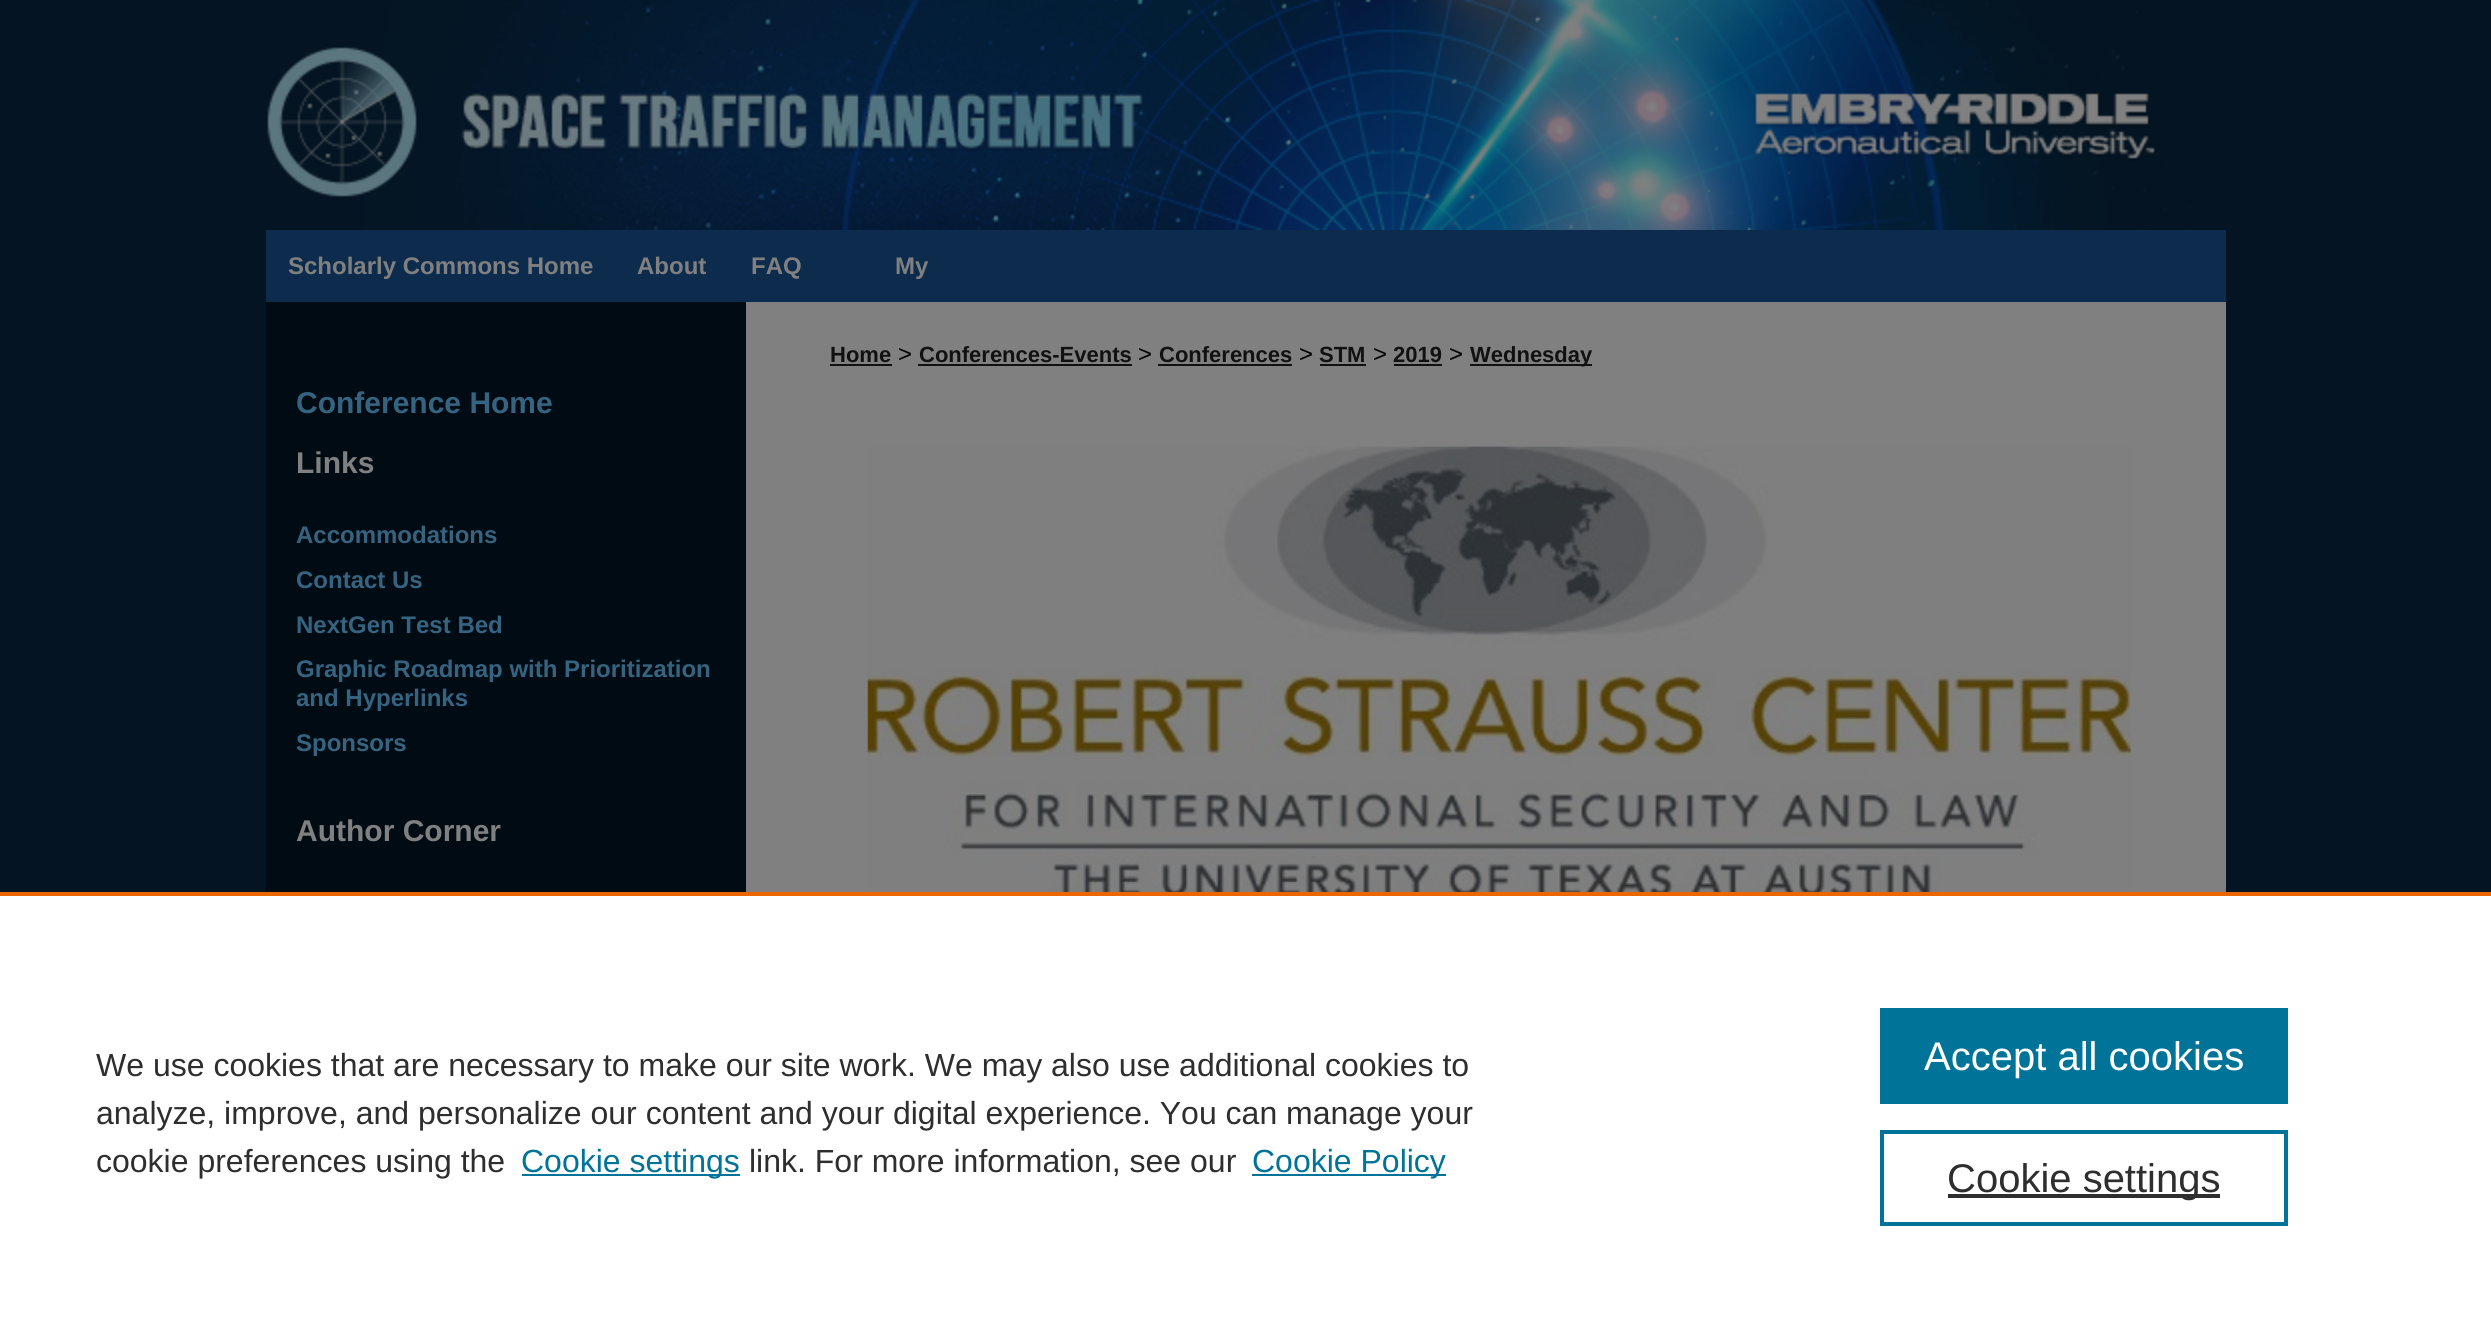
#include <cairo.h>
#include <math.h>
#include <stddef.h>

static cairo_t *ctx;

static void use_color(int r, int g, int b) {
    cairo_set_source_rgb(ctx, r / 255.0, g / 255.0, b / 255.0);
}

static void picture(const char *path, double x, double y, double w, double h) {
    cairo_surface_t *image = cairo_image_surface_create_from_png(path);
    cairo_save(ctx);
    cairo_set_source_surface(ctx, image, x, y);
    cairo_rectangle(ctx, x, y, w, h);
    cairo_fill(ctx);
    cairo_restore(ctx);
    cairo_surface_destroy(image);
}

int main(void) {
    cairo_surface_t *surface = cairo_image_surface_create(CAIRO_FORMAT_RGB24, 2491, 1332);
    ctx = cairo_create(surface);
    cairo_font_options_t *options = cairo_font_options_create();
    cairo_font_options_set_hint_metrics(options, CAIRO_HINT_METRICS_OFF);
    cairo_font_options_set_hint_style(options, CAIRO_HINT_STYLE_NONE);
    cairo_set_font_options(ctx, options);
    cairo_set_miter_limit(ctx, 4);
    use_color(4, 20, 34);
    cairo_paint(ctx);
    picture("img1.png", 267, 0, 1925, 230);
    use_color(13, 43, 77);
    cairo_rectangle(ctx, 266, 230, 1960, 72);
    cairo_fill(ctx);
    cairo_select_font_face(ctx, "Liberation Sans", CAIRO_FONT_SLANT_NORMAL, CAIRO_FONT_WEIGHT_BOLD);
    cairo_set_font_size(ctx, 24);
    use_color(128, 128, 128);
    cairo_move_to(ctx, 288, 274);
    cairo_show_text(ctx, "Scholarly Commons Home");
    cairo_move_to(ctx, 637, 274);
    cairo_show_text(ctx, "About");
    cairo_move_to(ctx, 751, 274);
    cairo_show_text(ctx, "FAQ");
    cairo_move_to(ctx, 895, 274);
    cairo_show_text(ctx, "My");
    use_color(0, 11, 20);
    cairo_rectangle(ctx, 266, 302, 480, 590);
    cairo_fill(ctx);
    use_color(128, 128, 128);
    cairo_rectangle(ctx, 746, 302, 1480, 590);
    cairo_fill(ctx);
    cairo_set_font_size(ctx, 22);
    use_color(17, 17, 17);
    cairo_move_to(ctx, 830, 362);
    cairo_show_text(ctx, "Home");
    cairo_rectangle(ctx, 830, 364, 62, 2);
    cairo_fill(ctx);
    cairo_select_font_face(ctx, "Liberation Sans", CAIRO_FONT_SLANT_NORMAL, CAIRO_FONT_WEIGHT_NORMAL);
    cairo_set_font_size(ctx, 24);
    use_color(0, 0, 0);
    cairo_move_to(ctx, 898, 362);
    cairo_show_text(ctx, ">");
    cairo_select_font_face(ctx, "Liberation Sans", CAIRO_FONT_SLANT_NORMAL, CAIRO_FONT_WEIGHT_BOLD);
    cairo_set_font_size(ctx, 22);
    use_color(17, 17, 17);
    cairo_move_to(ctx, 919, 362);
    cairo_show_text(ctx, "Conferences-Events");
    cairo_rectangle(ctx, 918, 364, 214, 2);
    cairo_fill(ctx);
    cairo_select_font_face(ctx, "Liberation Sans", CAIRO_FONT_SLANT_NORMAL, CAIRO_FONT_WEIGHT_NORMAL);
    cairo_set_font_size(ctx, 24);
    use_color(0, 0, 0);
    cairo_move_to(ctx, 1138, 362);
    cairo_show_text(ctx, ">");
    cairo_select_font_face(ctx, "Liberation Sans", CAIRO_FONT_SLANT_NORMAL, CAIRO_FONT_WEIGHT_BOLD);
    cairo_set_font_size(ctx, 22);
    use_color(17, 17, 17);
    cairo_move_to(ctx, 1159, 362);
    cairo_show_text(ctx, "Conferences");
    cairo_rectangle(ctx, 1158, 364, 134, 2);
    cairo_fill(ctx);
    cairo_select_font_face(ctx, "Liberation Sans", CAIRO_FONT_SLANT_NORMAL, CAIRO_FONT_WEIGHT_NORMAL);
    cairo_set_font_size(ctx, 24);
    use_color(0, 0, 0);
    cairo_move_to(ctx, 1299, 362);
    cairo_show_text(ctx, ">");
    cairo_select_font_face(ctx, "Liberation Sans", CAIRO_FONT_SLANT_NORMAL, CAIRO_FONT_WEIGHT_BOLD);
    cairo_set_font_size(ctx, 22);
    use_color(17, 17, 17);
    cairo_move_to(ctx, 1319, 362);
    cairo_show_text(ctx, "STM");
    cairo_rectangle(ctx, 1320, 364, 46, 2);
    cairo_fill(ctx);
    cairo_select_font_face(ctx, "Liberation Sans", CAIRO_FONT_SLANT_NORMAL, CAIRO_FONT_WEIGHT_NORMAL);
    cairo_set_font_size(ctx, 24);
    use_color(0, 0, 0);
    cairo_move_to(ctx, 1373, 362);
    cairo_show_text(ctx, ">");
    cairo_select_font_face(ctx, "Liberation Sans", CAIRO_FONT_SLANT_NORMAL, CAIRO_FONT_WEIGHT_BOLD);
    cairo_set_font_size(ctx, 22);
    use_color(17, 17, 17);
    cairo_move_to(ctx, 1393, 362);
    cairo_show_text(ctx, "2019");
    cairo_rectangle(ctx, 1394, 364, 48, 2);
    cairo_fill(ctx);
    cairo_select_font_face(ctx, "Liberation Sans", CAIRO_FONT_SLANT_NORMAL, CAIRO_FONT_WEIGHT_NORMAL);
    cairo_set_font_size(ctx, 24);
    use_color(0, 0, 0);
    cairo_move_to(ctx, 1449, 362);
    cairo_show_text(ctx, ">");
    use_color(17, 17, 17);
    cairo_rectangle(ctx, 1470, 364, 122, 2);
    cairo_fill(ctx);
    cairo_select_font_face(ctx, "Liberation Sans", CAIRO_FONT_SLANT_NORMAL, CAIRO_FONT_WEIGHT_BOLD);
    cairo_set_font_size(ctx, 22);
    cairo_move_to(ctx, 1470, 362);
    cairo_show_text(ctx, "Wednesday");
    picture("img2.png", 830, 446, 1334, 446);
    cairo_set_font_size(ctx, 30);
    use_color(54, 100, 128);
    cairo_move_to(ctx, 296, 413);
    cairo_show_text(ctx, "Conference Home");
    use_color(128, 128, 128);
    cairo_move_to(ctx, 296, 473);
    cairo_show_text(ctx, "Links");
    cairo_set_font_size(ctx, 24);
    use_color(54, 100, 128);
    cairo_move_to(ctx, 296, 543);
    cairo_show_text(ctx, "Accommodations");
    cairo_move_to(ctx, 296, 588);
    cairo_show_text(ctx, "Contact Us");
    cairo_move_to(ctx, 296, 633);
    cairo_show_text(ctx, "NextGen Test Bed");
    cairo_move_to(ctx, 296, 677);
    cairo_show_text(ctx, "Graphic Roadmap with Prioritization");
    cairo_move_to(ctx, 296, 706);
    cairo_show_text(ctx, "and Hyperlinks");
    cairo_move_to(ctx, 296, 751);
    cairo_show_text(ctx, "Sponsors");
    cairo_set_font_size(ctx, 30);
    use_color(128, 128, 128);
    cairo_move_to(ctx, 296, 841);
    cairo_show_text(ctx, "Author Corner");
    use_color(255, 255, 255);
    cairo_rectangle(ctx, 0, 896, 2491, 436);
    cairo_fill(ctx);
    use_color(235, 101, 0);
    cairo_rectangle(ctx, 0, 892, 2491, 4);
    cairo_fill(ctx);
    cairo_select_font_face(ctx, "Liberation Sans", CAIRO_FONT_SLANT_NORMAL, CAIRO_FONT_WEIGHT_NORMAL);
    cairo_set_font_size(ctx, 32);
    use_color(46, 46, 46);
    cairo_move_to(ctx, 96, 1076);
    cairo_show_text(ctx, "We use cookies that are necessary to make our site work. We may also use additional cookies to");
    cairo_move_to(ctx, 96, 1124);
    cairo_show_text(ctx, "analyze, improve, and personalize our content and your digital experience. You can manage your");
    cairo_move_to(ctx, 96, 1172);
    cairo_show_text(ctx, "cookie preferences using the");
    use_color(0, 115, 152);
    cairo_rectangle(ctx, 522, 1174, 218, 2);
    cairo_fill(ctx);
    cairo_move_to(ctx, 521, 1172);
    cairo_show_text(ctx, "Cookie settings");
    use_color(46, 46, 46);
    cairo_move_to(ctx, 749, 1172);
    cairo_show_text(ctx, "link. For more information, see our");
    use_color(0, 115, 152);
    cairo_rectangle(ctx, 1252, 1174, 194, 2);
    cairo_fill(ctx);
    cairo_move_to(ctx, 1252, 1172);
    cairo_show_text(ctx, "Cookie Policy");
    cairo_rectangle(ctx, 1880, 1008, 408, 96);
    cairo_fill(ctx);
    cairo_set_font_size(ctx, 40);
    use_color(255, 255, 255);
    cairo_move_to(ctx, 1924, 1070);
    cairo_show_text(ctx, "Accept all cookies");
    cairo_rectangle(ctx, 1882, 1132, 404, 92);
    use_color(0, 115, 152);
    cairo_set_line_width(ctx, 4);
    cairo_stroke(ctx);
    use_color(46, 46, 46);
    cairo_rectangle(ctx, 1948, 1194, 272, 4);
    cairo_fill(ctx);
    cairo_move_to(ctx, 1947, 1192);
    cairo_show_text(ctx, "Cookie settings");
    cairo_surface_write_to_png(surface, "result.png");
    cairo_font_options_destroy(options);
    cairo_destroy(ctx);
    cairo_surface_destroy(surface);
    return 0;
}
